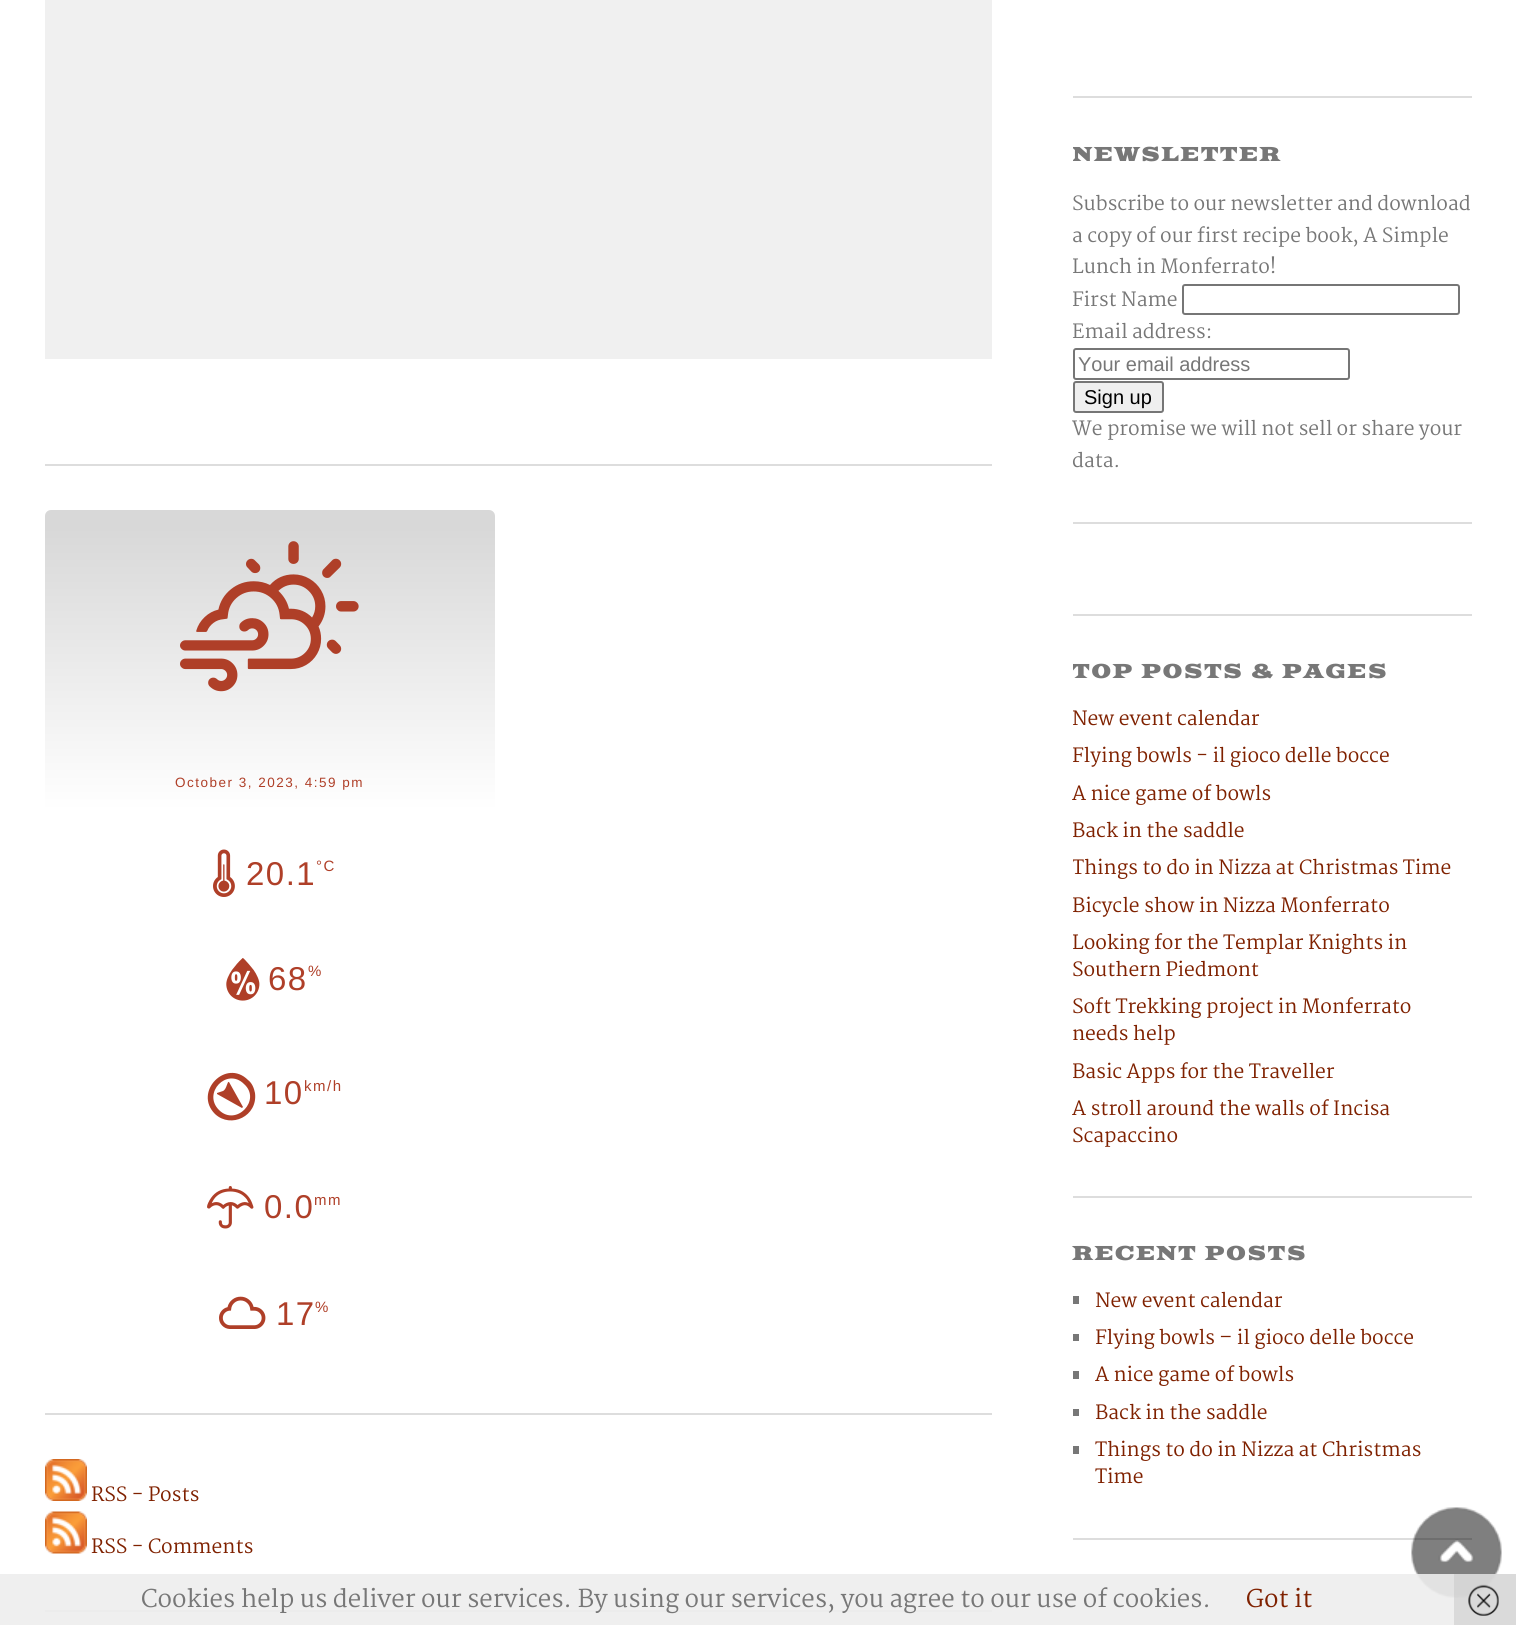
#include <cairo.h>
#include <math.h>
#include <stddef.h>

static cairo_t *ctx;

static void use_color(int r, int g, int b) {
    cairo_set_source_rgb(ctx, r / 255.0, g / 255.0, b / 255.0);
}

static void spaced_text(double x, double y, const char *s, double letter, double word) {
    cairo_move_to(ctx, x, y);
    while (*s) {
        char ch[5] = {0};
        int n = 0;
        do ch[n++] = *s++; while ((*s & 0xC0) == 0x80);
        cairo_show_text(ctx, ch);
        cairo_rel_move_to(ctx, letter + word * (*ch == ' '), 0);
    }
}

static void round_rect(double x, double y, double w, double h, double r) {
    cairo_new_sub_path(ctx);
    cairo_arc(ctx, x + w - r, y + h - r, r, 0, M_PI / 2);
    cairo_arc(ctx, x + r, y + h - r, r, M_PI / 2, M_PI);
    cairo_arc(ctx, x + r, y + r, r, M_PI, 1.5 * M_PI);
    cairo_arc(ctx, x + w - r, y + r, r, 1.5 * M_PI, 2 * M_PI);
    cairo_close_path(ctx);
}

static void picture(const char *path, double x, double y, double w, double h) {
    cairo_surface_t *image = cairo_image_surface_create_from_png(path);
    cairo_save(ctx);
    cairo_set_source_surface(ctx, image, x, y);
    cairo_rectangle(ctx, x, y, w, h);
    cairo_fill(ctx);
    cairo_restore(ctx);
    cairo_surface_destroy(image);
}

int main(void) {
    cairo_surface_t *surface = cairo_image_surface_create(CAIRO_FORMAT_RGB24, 1516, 1625);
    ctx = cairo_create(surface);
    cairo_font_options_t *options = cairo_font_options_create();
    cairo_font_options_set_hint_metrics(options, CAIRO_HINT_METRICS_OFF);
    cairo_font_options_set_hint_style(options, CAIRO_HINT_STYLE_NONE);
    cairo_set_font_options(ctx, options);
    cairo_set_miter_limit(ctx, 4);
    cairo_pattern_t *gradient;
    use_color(255, 255, 255);
    cairo_paint(ctx);
    use_color(240, 240, 240);
    cairo_rectangle(ctx, 45, 0, 947, 359);
    cairo_fill(ctx);
    use_color(221, 221, 221);
    cairo_rectangle(ctx, 45, 464, 947, 2);
    cairo_fill(ctx);
    cairo_rectangle(ctx, 45, 1413, 947, 2);
    cairo_fill(ctx);
    gradient = cairo_pattern_create_linear(270, 510, 270, 1368);
    cairo_pattern_add_color_stop_rgba(gradient, 0.02, 0.847, 0.847, 0.847, 1);
    cairo_pattern_add_color_stop_rgba(gradient, 0.35, 1, 1, 1, 1);
    cairo_set_source(ctx, gradient);
    cairo_pattern_destroy(gradient);
    round_rect(45, 510, 450, 858, 6);
    cairo_fill(ctx);
    picture("img1.png", 180, 541, 179, 151);
    cairo_select_font_face(ctx, "Liberation Sans", CAIRO_FONT_SLANT_NORMAL, CAIRO_FONT_WEIGHT_NORMAL);
    cairo_set_font_size(ctx, 13.5);
    use_color(175, 63, 40);
    spaced_text(175, 787, "October 3, 2023, 4:59 pm", 1.5, 0);
    picture("img2.png", 213, 849, 22, 48);
    cairo_set_font_size(ctx, 33);
    spaced_text(246, 885, "20.1", 1.5, 0);
    cairo_set_font_size(ctx, 15);
    spaced_text(316, 871, "°C", 1.5, 0);
    picture("img3.png", 226, 958, 34, 43);
    cairo_set_font_size(ctx, 33);
    spaced_text(268, 990, "68", 1.5, 0);
    cairo_set_font_size(ctx, 15);
    spaced_text(308, 976, "%", 1.5, 0);
    cairo_new_path(ctx);
    cairo_move_to(ctx, 248, 1080);
    cairo_curve_to(ctx, 252, 1083, 254, 1088, 255, 1093);
    cairo_curve_to(ctx, 258, 1116, 231, 1129, 215, 1114);
    cairo_curve_to(ctx, 193, 1092, 226, 1058, 248, 1080);
    cairo_close_path(ctx);
    cairo_move_to(ctx, 244, 1084);
    cairo_curve_to(ctx, 227, 1067, 202, 1093, 219, 1110);
    cairo_curve_to(ctx, 236, 1127, 262, 1100, 244, 1084);
    cairo_close_path(ctx);
    cairo_move_to(ctx, 229, 1082);
    cairo_line_to(ctx, 243, 1107);
    cairo_line_to(ctx, 242, 1108);
    cairo_line_to(ctx, 217, 1094);
    cairo_line_to(ctx, 217, 1093);
    cairo_line_to(ctx, 223, 1091);
    cairo_curve_to(ctx, 227, 1089, 227, 1081, 229, 1082);
    cairo_close_path(ctx);
    cairo_fill(ctx);
    cairo_set_font_size(ctx, 33);
    spaced_text(264, 1104, "10", 1.5, 0);
    cairo_set_font_size(ctx, 15);
    spaced_text(304, 1091, "km/h", 1.5, 0);
    picture("img4.png", 207, 1186, 47, 43);
    cairo_set_font_size(ctx, 33);
    spaced_text(264, 1218, "0.0", 1.5, 0);
    cairo_set_font_size(ctx, 15);
    spaced_text(314, 1205, "mm", 1.5, 0);
    picture("img5.png", 219, 1296, 47, 33);
    cairo_set_font_size(ctx, 33);
    spaced_text(276, 1325, "17", 1.5, 0);
    cairo_set_font_size(ctx, 15);
    spaced_text(315, 1312, "%", 1.5, 0);
    use_color(221, 221, 221);
    cairo_rectangle(ctx, 45, 1610, 947, 2);
    cairo_fill(ctx);
    picture("img6.png", 45, 1459, 42, 42);
    cairo_select_font_face(ctx, "Martel", CAIRO_FONT_SLANT_NORMAL, CAIRO_FONT_WEIGHT_NORMAL);
    cairo_set_font_size(ctx, 19.2);
    use_color(127, 33, 0);
    cairo_move_to(ctx, 91, 1501);
    cairo_show_text(ctx, "RSS - Posts");
    picture("img7.png", 45, 1511, 42, 43);
    cairo_move_to(ctx, 91, 1553);
    cairo_show_text(ctx, "RSS - Comments");
    use_color(221, 221, 221);
    cairo_rectangle(ctx, 1073, 96, 399, 2);
    cairo_fill(ctx);
    cairo_rectangle(ctx, 1073, 522, 399, 2);
    cairo_fill(ctx);
    cairo_save(ctx);
    cairo_rectangle(ctx, 1073, 143, 399, 379);
    cairo_clip(ctx);
    cairo_select_font_face(ctx, "Goblin One", CAIRO_FONT_SLANT_NORMAL, CAIRO_FONT_WEIGHT_BOLD);
    use_color(119, 119, 119);
    spaced_text(1072, 161, "NEWSLETTER", 1.9, 0);
    cairo_restore(ctx);
    use_color(119, 119, 119);
    cairo_move_to(ctx, 1072, 210);
    cairo_show_text(ctx, "Subscribe to our newsletter and download");
    cairo_move_to(ctx, 1072, 242);
    cairo_show_text(ctx, "a copy of our first recipe book, A Simple");
    cairo_move_to(ctx, 1072, 273);
    cairo_show_text(ctx, "Lunch in Monferrato!");
    cairo_move_to(ctx, 1072, 306);
    cairo_show_text(ctx, "First Name");
    round_rect(1183, 285, 276, 29, 2);
    use_color(118, 118, 118);
    cairo_stroke(ctx);
    use_color(119, 119, 119);
    cairo_move_to(ctx, 1072, 338);
    cairo_show_text(ctx, "Email address:");
    round_rect(1074, 349, 275, 30, 2);
    use_color(118, 118, 118);
    cairo_stroke(ctx);
    cairo_select_font_face(ctx, "Liberation Sans", CAIRO_FONT_SLANT_NORMAL, CAIRO_FONT_WEIGHT_NORMAL);
    cairo_set_font_size(ctx, 20);
    use_color(119, 119, 119);
    cairo_move_to(ctx, 1078, 371);
    cairo_show_text(ctx, "Your email address");
    use_color(239, 239, 239);
    round_rect(1074, 382, 89, 30, 2);
    cairo_fill_preserve(ctx);
    use_color(118, 118, 118);
    cairo_stroke(ctx);
    use_color(0, 0, 0);
    cairo_move_to(ctx, 1084, 404);
    cairo_show_text(ctx, "Sign up");
    cairo_select_font_face(ctx, "Martel", CAIRO_FONT_SLANT_NORMAL, CAIRO_FONT_WEIGHT_NORMAL);
    cairo_set_font_size(ctx, 19.2);
    use_color(119, 119, 119);
    cairo_move_to(ctx, 1072, 435);
    cairo_show_text(ctx, "We promise we will not sell or share your");
    cairo_move_to(ctx, 1072, 467);
    cairo_show_text(ctx, "data.");
    use_color(221, 221, 221);
    cairo_rectangle(ctx, 1073, 614, 399, 2);
    cairo_fill(ctx);
    cairo_rectangle(ctx, 1073, 1196, 399, 2);
    cairo_fill(ctx);
    cairo_save(ctx);
    cairo_rectangle(ctx, 1073, 660, 399, 536);
    cairo_clip(ctx);
    cairo_select_font_face(ctx, "Goblin One", CAIRO_FONT_SLANT_NORMAL, CAIRO_FONT_WEIGHT_BOLD);
    use_color(119, 119, 119);
    spaced_text(1072, 678, "TOP POSTS & PAGES", 1.9, 0);
    cairo_restore(ctx);
    use_color(127, 33, 0);
    cairo_move_to(ctx, 1072, 725);
    cairo_show_text(ctx, "New event calendar");
    cairo_move_to(ctx, 1072, 762);
    cairo_show_text(ctx, "Flying bowls - il gioco delle bocce");
    cairo_move_to(ctx, 1072, 800);
    cairo_show_text(ctx, "A nice game of bowls");
    cairo_move_to(ctx, 1072, 837);
    cairo_show_text(ctx, "Back in the saddle");
    cairo_save(ctx);
    cairo_rectangle(ctx, 1073, 660, 399, 536);
    cairo_clip(ctx);
    cairo_move_to(ctx, 1072, 874);
    cairo_show_text(ctx, "Things to do in Nizza at Christmas Time");
    cairo_restore(ctx);
    cairo_move_to(ctx, 1072, 912);
    cairo_show_text(ctx, "Bicycle show in Nizza Monferrato");
    cairo_move_to(ctx, 1072, 949);
    cairo_show_text(ctx, "Looking for the Templar Knights in");
    cairo_move_to(ctx, 1072, 976);
    cairo_show_text(ctx, "Southern Piedmont");
    cairo_move_to(ctx, 1072, 1013);
    cairo_show_text(ctx, "Soft Trekking project in Monferrato");
    cairo_move_to(ctx, 1072, 1040);
    cairo_show_text(ctx, "needs help");
    cairo_move_to(ctx, 1072, 1078);
    cairo_show_text(ctx, "Basic Apps for the Traveller");
    cairo_move_to(ctx, 1072, 1115);
    cairo_show_text(ctx, "A stroll around the walls of Incisa");
    cairo_move_to(ctx, 1072, 1142);
    cairo_show_text(ctx, "Scapaccino");
    use_color(221, 221, 221);
    cairo_rectangle(ctx, 1073, 1538, 399, 2);
    cairo_fill(ctx);
    cairo_select_font_face(ctx, "Goblin One", CAIRO_FONT_SLANT_NORMAL, CAIRO_FONT_WEIGHT_BOLD);
    use_color(119, 119, 119);
    spaced_text(1072, 1260, "RECENT POSTS", 1.9, 0);
    cairo_rectangle(ctx, 1073, 1296, 6, 8);
    cairo_fill(ctx);
    cairo_select_font_face(ctx, "Martel", CAIRO_FONT_SLANT_NORMAL, CAIRO_FONT_WEIGHT_NORMAL);
    use_color(127, 33, 0);
    cairo_move_to(ctx, 1095, 1307);
    cairo_show_text(ctx, "New event calendar");
    use_color(119, 119, 119);
    cairo_rectangle(ctx, 1073, 1334, 6, 7);
    cairo_fill(ctx);
    use_color(127, 33, 0);
    cairo_move_to(ctx, 1095, 1344);
    cairo_show_text(ctx, "Flying bowls – il gioco delle bocce");
    use_color(119, 119, 119);
    cairo_rectangle(ctx, 1073, 1371, 6, 8);
    cairo_fill(ctx);
    use_color(127, 33, 0);
    cairo_move_to(ctx, 1095, 1381);
    cairo_show_text(ctx, "A nice game of bowls");
    use_color(119, 119, 119);
    cairo_rectangle(ctx, 1073, 1409, 6, 7);
    cairo_fill(ctx);
    use_color(127, 33, 0);
    cairo_move_to(ctx, 1095, 1419);
    cairo_show_text(ctx, "Back in the saddle");
    use_color(119, 119, 119);
    cairo_rectangle(ctx, 1073, 1446, 6, 8);
    cairo_fill(ctx);
    use_color(127, 33, 0);
    cairo_move_to(ctx, 1095, 1456);
    cairo_show_text(ctx, "Things to do in Nizza at Christmas");
    cairo_move_to(ctx, 1095, 1483);
    cairo_show_text(ctx, "Time");
    picture("img9.png", 1411, 1507, 91, 91);
    cairo_set_source_rgba(ctx, 0.933, 0.933, 0.933, 0.9);
    cairo_rectangle(ctx, 0, 1574, 1516, 51);
    cairo_fill(ctx);
    cairo_set_font_size(ctx, 24);
    use_color(119, 119, 119);
    cairo_move_to(ctx, 141, 1607);
    cairo_show_text(ctx, "Cookies help us deliver our services. By using our services, you agree to our use of cookies.");
    use_color(127, 33, 0);
    cairo_move_to(ctx, 1246, 1607);
    cairo_show_text(ctx, "Got it");
    cairo_set_source_rgba(ctx, 0.8, 0.8, 0.8, 0.6);
    cairo_rectangle(ctx, 1454, 1574, 62, 51);
    cairo_fill(ctx);
    picture("img8.png", 1468, 1584, 31, 32);
    cairo_surface_write_to_png(surface, "result.png");
    cairo_font_options_destroy(options);
    cairo_destroy(ctx);
    cairo_surface_destroy(surface);
    return 0;
}
